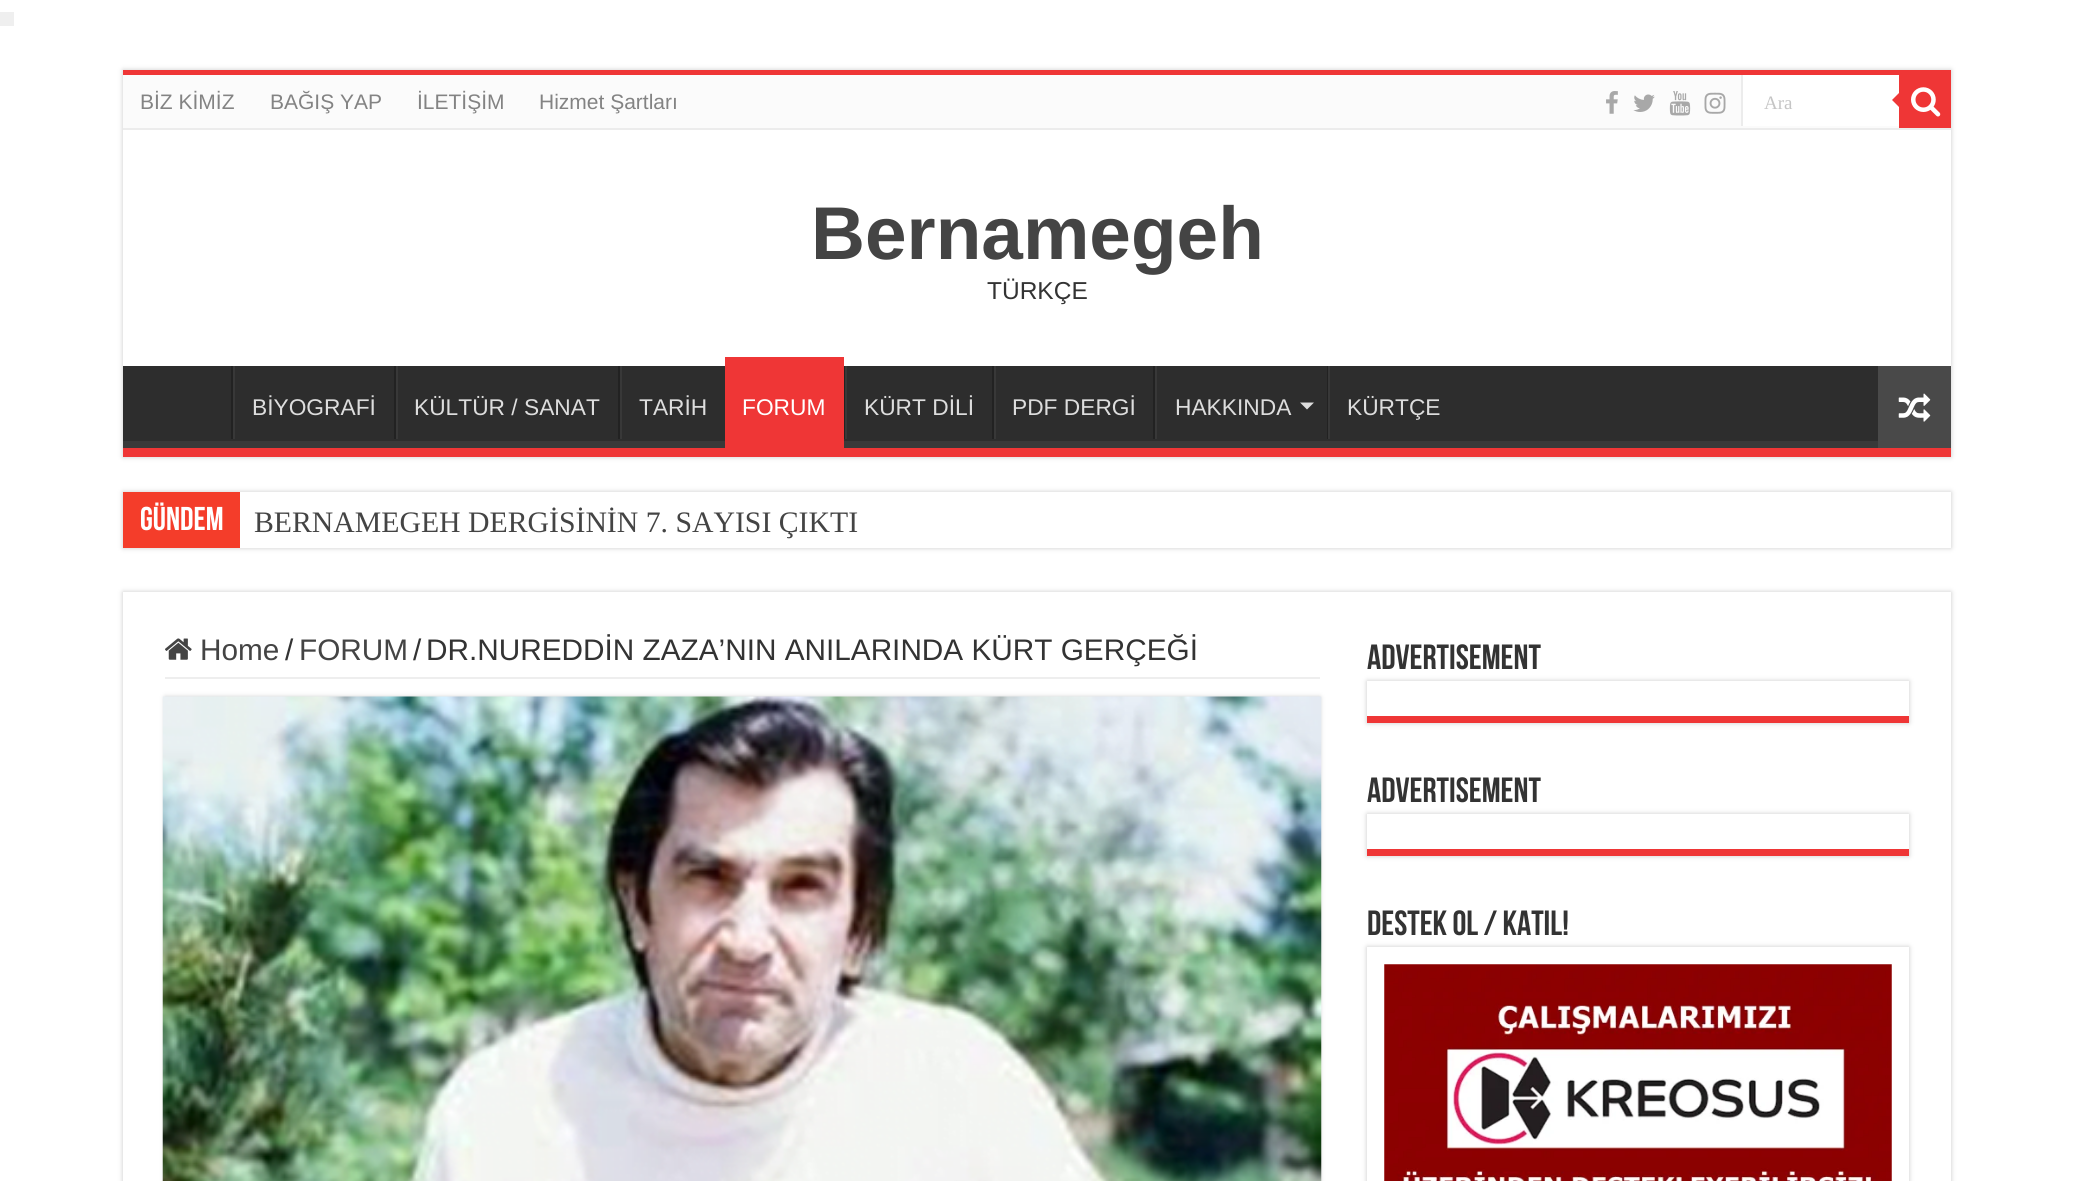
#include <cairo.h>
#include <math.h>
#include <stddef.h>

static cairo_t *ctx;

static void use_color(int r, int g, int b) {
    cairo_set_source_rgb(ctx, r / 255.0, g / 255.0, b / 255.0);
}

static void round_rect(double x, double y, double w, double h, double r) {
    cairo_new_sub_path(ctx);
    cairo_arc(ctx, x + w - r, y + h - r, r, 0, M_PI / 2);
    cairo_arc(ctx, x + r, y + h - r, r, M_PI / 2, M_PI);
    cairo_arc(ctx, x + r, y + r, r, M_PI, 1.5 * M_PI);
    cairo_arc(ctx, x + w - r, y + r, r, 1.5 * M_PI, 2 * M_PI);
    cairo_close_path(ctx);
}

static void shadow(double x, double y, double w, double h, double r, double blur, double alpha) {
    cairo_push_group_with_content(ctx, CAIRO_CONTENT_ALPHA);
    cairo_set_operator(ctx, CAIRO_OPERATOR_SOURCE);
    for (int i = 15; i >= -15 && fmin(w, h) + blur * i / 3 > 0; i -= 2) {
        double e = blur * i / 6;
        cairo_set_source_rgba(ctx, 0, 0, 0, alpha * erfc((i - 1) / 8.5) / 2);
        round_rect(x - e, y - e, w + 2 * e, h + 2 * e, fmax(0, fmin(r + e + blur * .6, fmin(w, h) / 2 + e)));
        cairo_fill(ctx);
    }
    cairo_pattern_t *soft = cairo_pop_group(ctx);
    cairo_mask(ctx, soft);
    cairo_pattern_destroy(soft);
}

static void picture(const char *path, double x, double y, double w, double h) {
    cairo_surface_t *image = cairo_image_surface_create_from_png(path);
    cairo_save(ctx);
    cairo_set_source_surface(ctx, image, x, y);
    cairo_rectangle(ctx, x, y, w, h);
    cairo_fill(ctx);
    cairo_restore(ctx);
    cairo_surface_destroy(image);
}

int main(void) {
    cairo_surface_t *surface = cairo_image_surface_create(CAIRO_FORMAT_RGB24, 2073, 1181);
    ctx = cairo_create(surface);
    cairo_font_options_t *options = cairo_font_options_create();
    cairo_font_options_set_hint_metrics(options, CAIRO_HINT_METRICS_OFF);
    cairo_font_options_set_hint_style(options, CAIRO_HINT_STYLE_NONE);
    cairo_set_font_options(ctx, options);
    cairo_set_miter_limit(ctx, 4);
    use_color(255, 255, 255);
    cairo_paint(ctx);
    use_color(239, 239, 239);
    cairo_rectangle(ctx, 0, 12, 14, 14);
    cairo_fill(ctx);
    use_color(202, 202, 202);
    shadow(123, 70, 1828, 387, 0, 2.5, 1);
    use_color(255, 255, 255);
    cairo_rectangle(ctx, 123, 130, 1828, 236);
    cairo_fill(ctx);
    use_color(239, 54, 54);
    cairo_rectangle(ctx, 123, 70, 1828, 5);
    cairo_fill(ctx);
    use_color(251, 251, 251);
    cairo_rectangle(ctx, 123, 75, 1776, 53);
    cairo_fill(ctx);
    use_color(236, 236, 236);
    cairo_rectangle(ctx, 123, 128, 1828, 2);
    cairo_fill(ctx);
    cairo_select_font_face(ctx, "Liberation Sans", CAIRO_FONT_SLANT_NORMAL, CAIRO_FONT_WEIGHT_NORMAL);
    cairo_set_font_size(ctx, 21);
    use_color(131, 131, 131);
    cairo_move_to(ctx, 140, 109);
    cairo_show_text(ctx, "BİZ KİMİZ");
    cairo_move_to(ctx, 270, 109);
    cairo_show_text(ctx, "BAĞIŞ YAP");
    cairo_move_to(ctx, 417, 109);
    cairo_show_text(ctx, "İLETİŞİM");
    cairo_move_to(ctx, 539, 109);
    cairo_show_text(ctx, "Hizmet Şartları");
    picture("img1.png", 1606, 91, 12, 23);
    picture("img2.png", 1633, 94, 22, 18);
    picture("img3.png", 1669, 91, 22, 25);
    picture("img4.png", 1704, 92, 22, 22);
    use_color(255, 255, 255);
    cairo_rectangle(ctx, 1743, 75, 156, 51);
    cairo_fill(ctx);
    use_color(236, 236, 236);
    cairo_rectangle(ctx, 1741, 75, 2, 51);
    cairo_fill(ctx);
    cairo_select_font_face(ctx, "Liberation Serif", CAIRO_FONT_SLANT_NORMAL, CAIRO_FONT_WEIGHT_NORMAL);
    cairo_set_font_size(ctx, 19);
    use_color(197, 197, 197);
    cairo_move_to(ctx, 1764, 109);
    cairo_show_text(ctx, "Ara");
    use_color(239, 54, 54);
    cairo_rectangle(ctx, 1899, 75, 52, 53);
    cairo_fill(ctx);
    picture("img5.png", 1911, 87, 30, 30);
    cairo_new_path(ctx);
    cairo_move_to(ctx, 1899, 93);
    cairo_line_to(ctx, 1899, 107);
    cairo_line_to(ctx, 1892, 100);
    cairo_close_path(ctx);
    cairo_fill(ctx);
    cairo_select_font_face(ctx, "Liberation Sans", CAIRO_FONT_SLANT_NORMAL, CAIRO_FONT_WEIGHT_BOLD);
    cairo_set_font_size(ctx, 74.75);
    use_color(68, 68, 68);
    cairo_move_to(ctx, 811, 259);
    cairo_show_text(ctx, "Bernamegeh");
    cairo_select_font_face(ctx, "Liberation Sans", CAIRO_FONT_SLANT_NORMAL, CAIRO_FONT_WEIGHT_NORMAL);
    cairo_set_font_size(ctx, 24.5);
    use_color(51, 51, 51);
    cairo_move_to(ctx, 987, 299);
    cairo_show_text(ctx, "TÜRKÇE");
    use_color(45, 45, 45);
    cairo_rectangle(ctx, 123, 366, 1755, 75);
    cairo_fill(ctx);
    cairo_save(ctx);
    cairo_rectangle(ctx, 123, 366, 1828, 82);
    cairo_clip(ctx);
    use_color(57, 57, 57);
    cairo_set_fill_rule(ctx, CAIRO_FILL_RULE_EVEN_ODD);
    cairo_new_path(ctx);
    cairo_move_to(ctx, -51, 192);
    cairo_line_to(ctx, 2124, 192);
    cairo_line_to(ctx, 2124, 621);
    cairo_line_to(ctx, -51, 621);
    cairo_close_path(ctx);
    cairo_move_to(ctx, 121, 355);
    cairo_line_to(ctx, 1950, 355);
    cairo_curve_to(ctx, 1950, 355, 1951, 356, 1951, 357);
    cairo_line_to(ctx, 1951, 439);
    cairo_curve_to(ctx, 1951, 440, 1950, 441, 1950, 441);
    cairo_line_to(ctx, 121, 441);
    cairo_curve_to(ctx, 120, 441, 119, 440, 119, 439);
    cairo_line_to(ctx, 119, 357);
    cairo_curve_to(ctx, 119, 356, 120, 355, 121, 355);
    cairo_close_path(ctx);
    cairo_fill(ctx);
    cairo_restore(ctx);
    use_color(239, 54, 54);
    cairo_rectangle(ctx, 123, 448, 1828, 9);
    cairo_fill(ctx);
    use_color(34, 34, 34);
    cairo_rectangle(ctx, 231, 366, 2, 73);
    cairo_fill(ctx);
    use_color(56, 56, 56);
    cairo_rectangle(ctx, 233, 366, 2, 73);
    cairo_fill(ctx);
    cairo_set_font_size(ctx, 22.75);
    use_color(221, 221, 221);
    cairo_move_to(ctx, 252, 415);
    cairo_show_text(ctx, "BİYOGRAFİ");
    use_color(34, 34, 34);
    cairo_rectangle(ctx, 394, 366, 2, 73);
    cairo_fill(ctx);
    use_color(56, 56, 56);
    cairo_rectangle(ctx, 396, 366, 2, 73);
    cairo_fill(ctx);
    use_color(221, 221, 221);
    cairo_move_to(ctx, 414, 415);
    cairo_show_text(ctx, "KÜLTÜR / SANAT");
    use_color(34, 34, 34);
    cairo_rectangle(ctx, 618, 366, 2, 73);
    cairo_fill(ctx);
    use_color(56, 56, 56);
    cairo_rectangle(ctx, 620, 366, 2, 73);
    cairo_fill(ctx);
    use_color(221, 221, 221);
    cairo_move_to(ctx, 639, 415);
    cairo_show_text(ctx, "TARİH");
    use_color(239, 54, 54);
    cairo_rectangle(ctx, 725, 357, 119, 91);
    cairo_fill(ctx);
    use_color(255, 255, 255);
    cairo_move_to(ctx, 742, 415);
    cairo_show_text(ctx, "FORUM");
    use_color(34, 34, 34);
    cairo_rectangle(ctx, 844, 366, 1, 73);
    cairo_fill(ctx);
    use_color(56, 56, 56);
    cairo_rectangle(ctx, 845, 366, 2, 73);
    cairo_fill(ctx);
    use_color(221, 221, 221);
    cairo_move_to(ctx, 864, 415);
    cairo_show_text(ctx, "KÜRT DİLİ");
    use_color(34, 34, 34);
    cairo_rectangle(ctx, 992, 366, 2, 73);
    cairo_fill(ctx);
    use_color(56, 56, 56);
    cairo_rectangle(ctx, 994, 366, 2, 73);
    cairo_fill(ctx);
    use_color(221, 221, 221);
    cairo_move_to(ctx, 1012, 415);
    cairo_show_text(ctx, "PDF DERGİ");
    use_color(34, 34, 34);
    cairo_rectangle(ctx, 1153, 366, 2, 73);
    cairo_fill(ctx);
    use_color(56, 56, 56);
    cairo_rectangle(ctx, 1155, 366, 2, 73);
    cairo_fill(ctx);
    use_color(221, 221, 221);
    cairo_move_to(ctx, 1175, 415);
    cairo_show_text(ctx, "HAKKINDA");
    cairo_new_path(ctx);
    cairo_move_to(ctx, 1300, 402.5);
    cairo_line_to(ctx, 1314, 402.5);
    cairo_line_to(ctx, 1307, 409.5);
    cairo_close_path(ctx);
    cairo_fill(ctx);
    use_color(34, 34, 34);
    cairo_rectangle(ctx, 1327, 366, 1, 73);
    cairo_fill(ctx);
    use_color(56, 56, 56);
    cairo_rectangle(ctx, 1328, 366, 2, 73);
    cairo_fill(ctx);
    use_color(221, 221, 221);
    cairo_move_to(ctx, 1347, 415);
    cairo_show_text(ctx, "KÜRTÇE");
    use_color(73, 73, 73);
    cairo_rectangle(ctx, 1878, 366, 73, 82);
    cairo_fill(ctx);
    picture("img6.png", 1898, 393, 33, 29);
    use_color(202, 202, 202);
    shadow(123, 492, 1828, 56, 0, 2.5, 1);
    use_color(255, 255, 255);
    cairo_rectangle(ctx, 240, 492, 1711, 56);
    cairo_fill(ctx);
    use_color(244, 61, 42);
    cairo_rectangle(ctx, 123, 492, 117, 56);
    cairo_fill(ctx);
    cairo_select_font_face(ctx, "Bebas Neue", CAIRO_FONT_SLANT_NORMAL, CAIRO_FONT_WEIGHT_BOLD);
    cairo_set_font_size(ctx, 33);
    use_color(255, 255, 255);
    cairo_move_to(ctx, 140, 530);
    cairo_show_text(ctx, "GÜNDEM");
    cairo_select_font_face(ctx, "Liberation Serif", CAIRO_FONT_SLANT_NORMAL, CAIRO_FONT_WEIGHT_NORMAL);
    cairo_set_font_size(ctx, 29.75);
    use_color(68, 68, 68);
    cairo_move_to(ctx, 254, 532);
    cairo_show_text(ctx, "BERNAMEGEH DERGİSİNİN 7. SAYISI ÇIKTI");
    cairo_save(ctx);
    cairo_set_fill_rule(ctx, CAIRO_FILL_RULE_EVEN_ODD);
    cairo_new_path(ctx);
    cairo_move_to(ctx, 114, 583);
    cairo_line_to(ctx, 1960, 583);
    cairo_line_to(ctx, 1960, 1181);
    cairo_line_to(ctx, 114, 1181);
    cairo_close_path(ctx);
    cairo_move_to(ctx, 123, 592);
    cairo_line_to(ctx, 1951, 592);
    cairo_line_to(ctx, 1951, 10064);
    cairo_line_to(ctx, 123, 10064);
    cairo_close_path(ctx);
    cairo_clip(ctx);
    use_color(202, 202, 202);
    shadow(123, 592, 1828, 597, 0, 2.5, 1);
    cairo_restore(ctx);
    use_color(238, 238, 238);
    cairo_rectangle(ctx, 165, 677, 1155, 2);
    cairo_fill(ctx);
    picture("img7.png", 165, 638, 27, 22);
    cairo_select_font_face(ctx, "Liberation Sans", CAIRO_FONT_SLANT_NORMAL, CAIRO_FONT_WEIGHT_NORMAL);
    use_color(68, 68, 68);
    cairo_move_to(ctx, 200, 660);
    cairo_show_text(ctx, "Home");
    use_color(51, 51, 51);
    cairo_move_to(ctx, 285, 660);
    cairo_show_text(ctx, "/");
    use_color(68, 68, 68);
    cairo_move_to(ctx, 299, 660);
    cairo_show_text(ctx, "FORUM");
    use_color(51, 51, 51);
    cairo_move_to(ctx, 413, 660);
    cairo_show_text(ctx, "/");
    cairo_move_to(ctx, 426, 660);
    cairo_show_text(ctx, "DR.NUREDDİN ZAZA’NIN ANILARINDA KÜRT GERÇEĞİ");
    use_color(202, 202, 202);
    shadow(165, 697, 1155, 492, 0, 2.5, 1);
    picture("img8.png", 162, 696, 1160, 485);
    cairo_select_font_face(ctx, "Bebas Neue", CAIRO_FONT_SLANT_NORMAL, CAIRO_FONT_WEIGHT_BOLD);
    cairo_set_font_size(ctx, 35);
    use_color(51, 51, 51);
    cairo_move_to(ctx, 1367, 669);
    cairo_show_text(ctx, "Advertisement");
    use_color(202, 202, 202);
    shadow(1367, 681, 542, 42, 0, 2.5, 1);
    use_color(255, 255, 255);
    cairo_rectangle(ctx, 1367, 681, 542, 35);
    cairo_fill(ctx);
    use_color(239, 54, 54);
    cairo_rectangle(ctx, 1367, 716, 542, 7);
    cairo_fill(ctx);
    use_color(51, 51, 51);
    cairo_move_to(ctx, 1367, 802);
    cairo_show_text(ctx, "Advertisement");
    use_color(202, 202, 202);
    shadow(1367, 814, 542, 42, 0, 2.5, 1);
    use_color(255, 255, 255);
    cairo_rectangle(ctx, 1367, 814, 542, 35);
    cairo_fill(ctx);
    use_color(239, 54, 54);
    cairo_rectangle(ctx, 1367, 849, 542, 7);
    cairo_fill(ctx);
    use_color(51, 51, 51);
    cairo_move_to(ctx, 1367, 935);
    cairo_show_text(ctx, "DESTEK OL / KATIL!");
    cairo_save(ctx);
    cairo_set_fill_rule(ctx, CAIRO_FILL_RULE_EVEN_ODD);
    cairo_new_path(ctx);
    cairo_move_to(ctx, 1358, 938);
    cairo_line_to(ctx, 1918, 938);
    cairo_line_to(ctx, 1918, 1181);
    cairo_line_to(ctx, 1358, 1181);
    cairo_close_path(ctx);
    cairo_move_to(ctx, 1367, 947);
    cairo_line_to(ctx, 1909, 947);
    cairo_line_to(ctx, 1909, 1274);
    cairo_line_to(ctx, 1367, 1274);
    cairo_close_path(ctx);
    cairo_clip(ctx);
    use_color(202, 202, 202);
    shadow(1367, 947, 542, 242, 0, 2.5, 1);
    cairo_restore(ctx);
    picture("img9.png", 1384, 964, 508, 217);
    cairo_surface_write_to_png(surface, "result.png");
    cairo_font_options_destroy(options);
    cairo_destroy(ctx);
    cairo_surface_destroy(surface);
    return 0;
}
